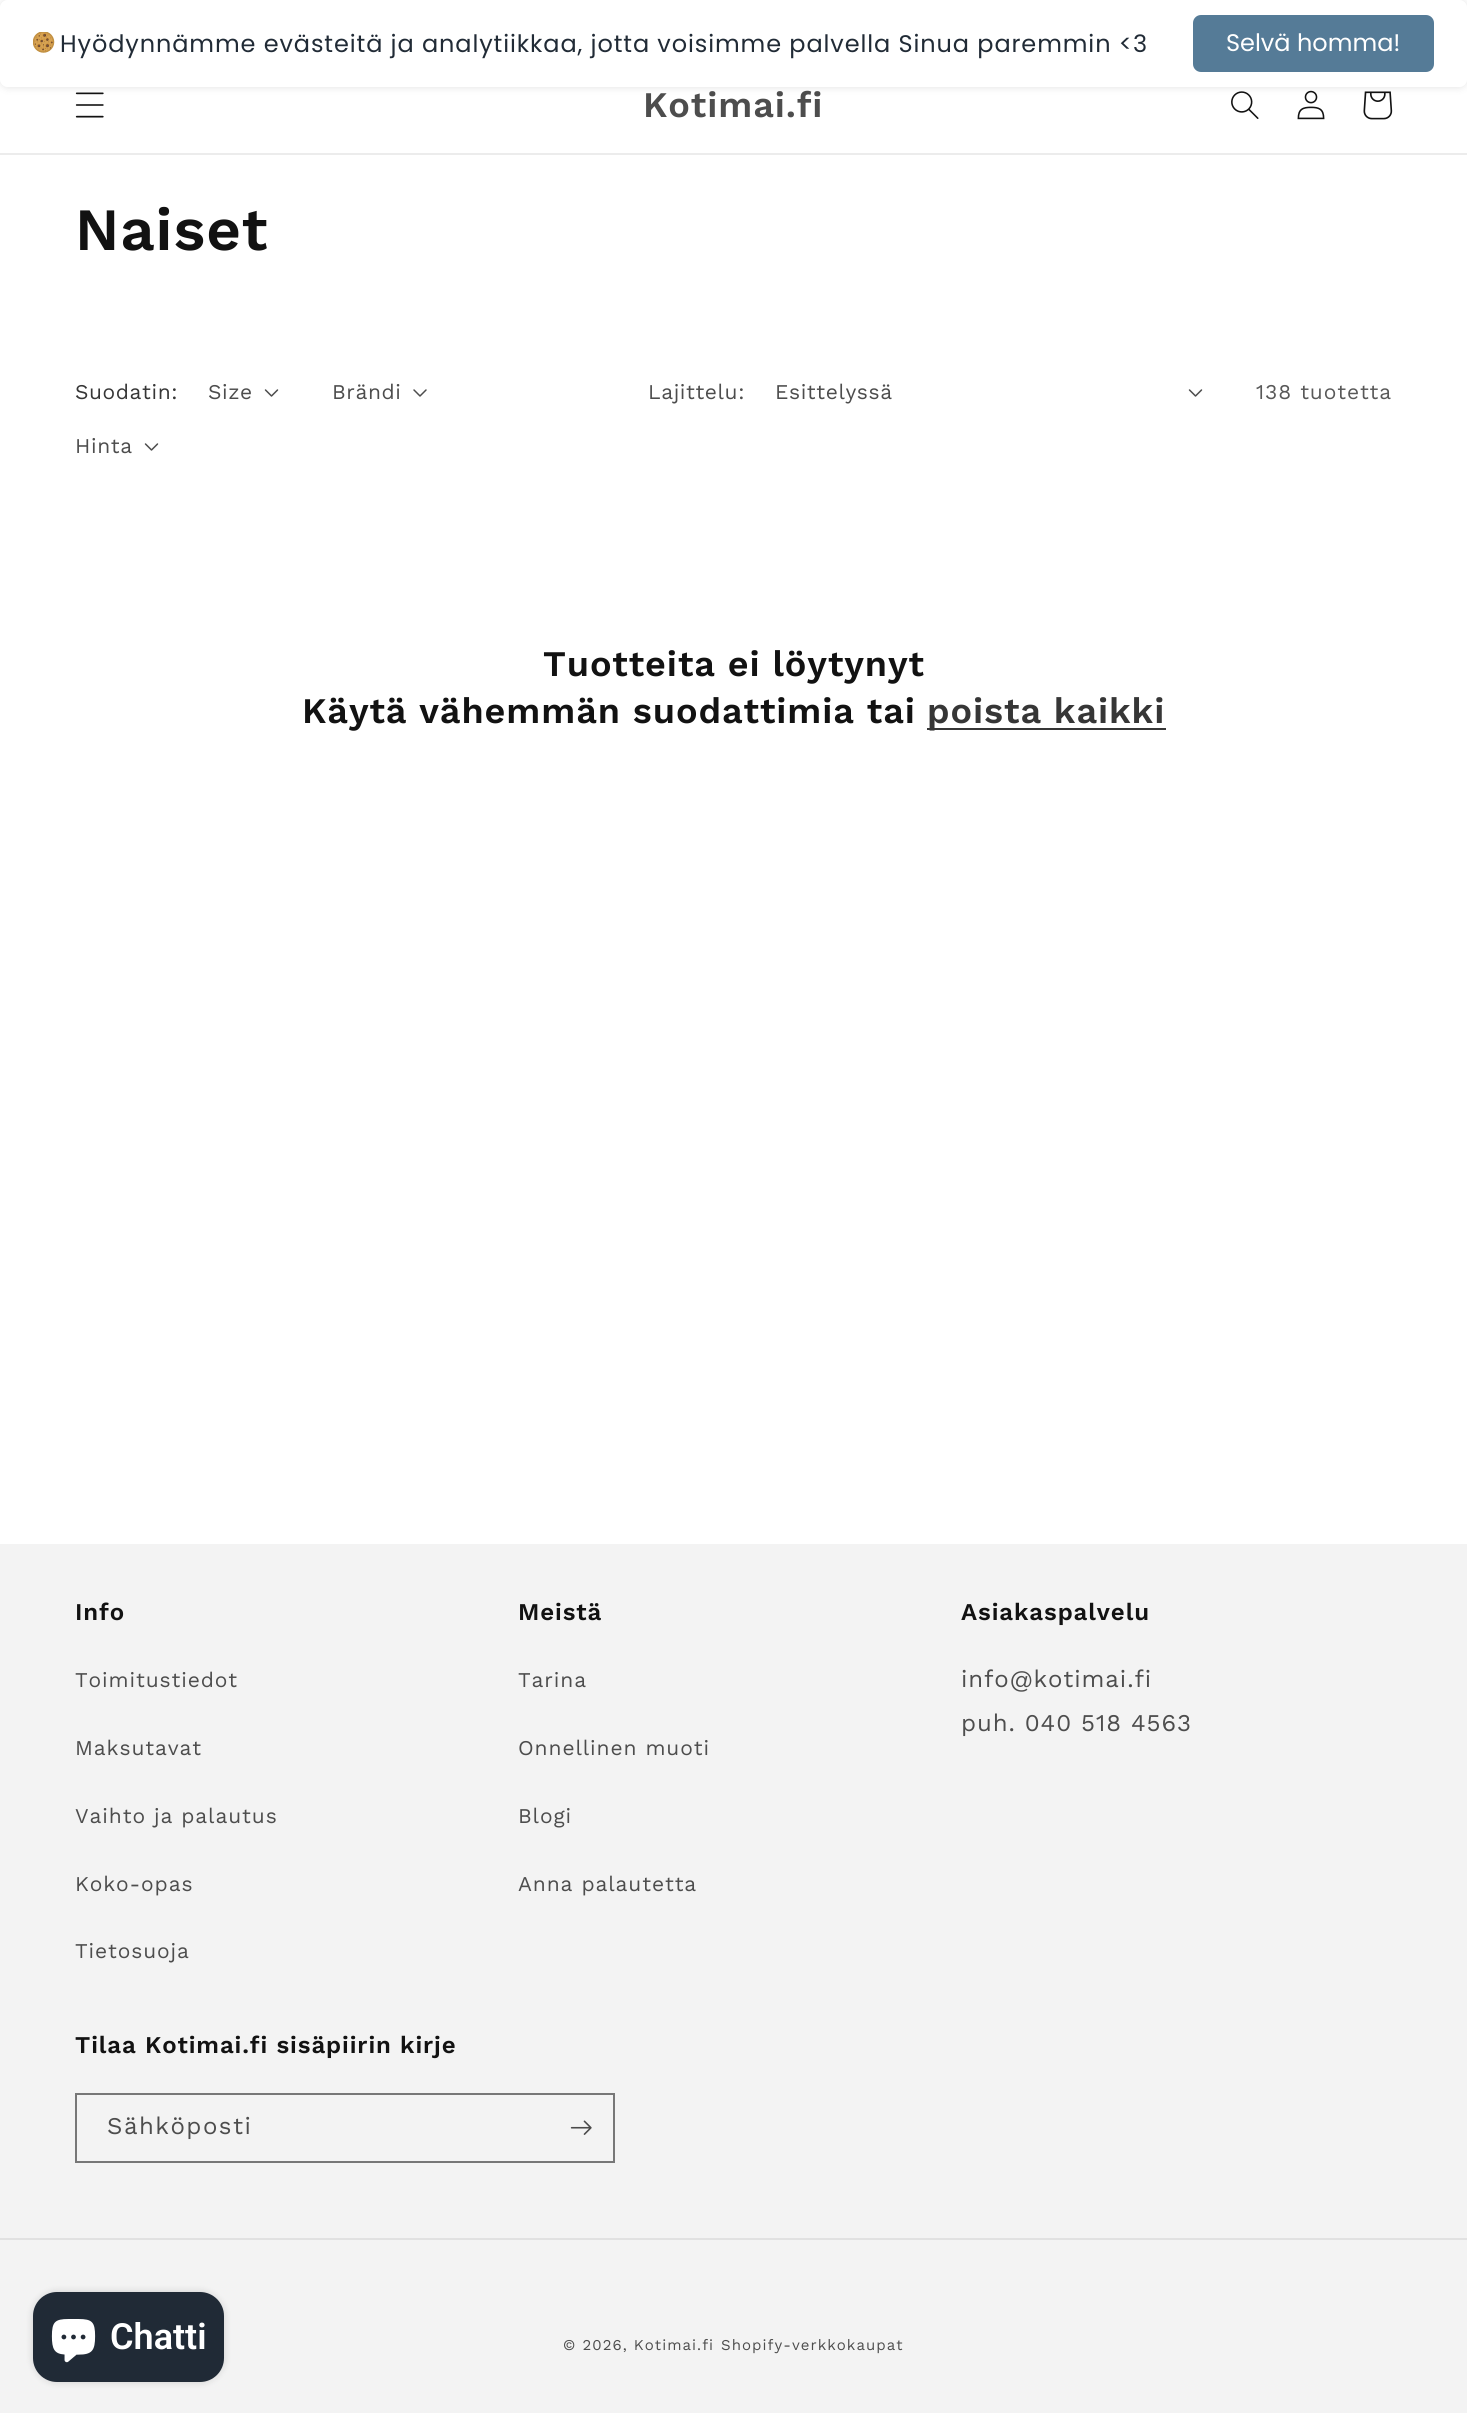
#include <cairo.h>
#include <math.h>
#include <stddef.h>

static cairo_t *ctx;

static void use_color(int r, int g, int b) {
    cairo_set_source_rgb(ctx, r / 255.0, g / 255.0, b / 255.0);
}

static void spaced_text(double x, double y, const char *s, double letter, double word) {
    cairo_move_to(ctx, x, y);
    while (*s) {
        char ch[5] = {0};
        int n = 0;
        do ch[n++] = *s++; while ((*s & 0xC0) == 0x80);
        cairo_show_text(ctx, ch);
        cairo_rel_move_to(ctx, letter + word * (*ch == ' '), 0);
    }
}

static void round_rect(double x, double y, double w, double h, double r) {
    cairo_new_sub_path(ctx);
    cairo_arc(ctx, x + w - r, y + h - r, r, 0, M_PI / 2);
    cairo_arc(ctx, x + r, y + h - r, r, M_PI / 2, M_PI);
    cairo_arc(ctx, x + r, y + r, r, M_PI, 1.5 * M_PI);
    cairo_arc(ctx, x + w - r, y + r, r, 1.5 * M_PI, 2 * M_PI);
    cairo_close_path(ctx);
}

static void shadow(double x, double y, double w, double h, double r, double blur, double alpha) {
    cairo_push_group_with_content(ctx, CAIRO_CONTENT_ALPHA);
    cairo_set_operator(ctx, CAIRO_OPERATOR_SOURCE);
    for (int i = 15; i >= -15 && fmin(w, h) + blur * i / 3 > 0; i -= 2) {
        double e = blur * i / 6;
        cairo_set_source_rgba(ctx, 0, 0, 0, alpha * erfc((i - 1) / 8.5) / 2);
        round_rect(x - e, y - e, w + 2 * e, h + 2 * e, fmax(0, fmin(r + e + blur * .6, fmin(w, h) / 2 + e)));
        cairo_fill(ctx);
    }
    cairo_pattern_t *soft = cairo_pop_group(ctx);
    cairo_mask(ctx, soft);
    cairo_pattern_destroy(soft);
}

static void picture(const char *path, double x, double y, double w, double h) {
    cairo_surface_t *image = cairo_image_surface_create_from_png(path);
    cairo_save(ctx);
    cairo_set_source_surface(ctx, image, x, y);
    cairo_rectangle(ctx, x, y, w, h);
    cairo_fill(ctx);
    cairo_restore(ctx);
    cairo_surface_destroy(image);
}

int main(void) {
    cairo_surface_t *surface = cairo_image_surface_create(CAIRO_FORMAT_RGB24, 1467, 2413);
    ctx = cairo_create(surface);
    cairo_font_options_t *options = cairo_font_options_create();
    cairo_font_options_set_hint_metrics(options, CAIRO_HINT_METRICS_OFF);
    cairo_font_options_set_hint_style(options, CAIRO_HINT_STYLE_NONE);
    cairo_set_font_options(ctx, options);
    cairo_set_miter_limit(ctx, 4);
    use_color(255, 255, 255);
    cairo_paint(ctx);
    picture("img2.png", 75, 92, 29, 26);
    picture("img3.png", 1231, 91, 28, 28);
    picture("img4.png", 1297, 90, 28, 30);
    picture("img5.png", 1363, 91, 30, 29);
    cairo_save(ctx);
    cairo_set_fill_rule(ctx, CAIRO_FILL_RULE_EVEN_ODD);
    cairo_new_path(ctx);
    cairo_move_to(ctx, 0, 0);
    cairo_line_to(ctx, 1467, 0);
    cairo_line_to(ctx, 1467, 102);
    cairo_line_to(ctx, 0, 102);
    cairo_close_path(ctx);
    cairo_move_to(ctx, 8, 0);
    cairo_line_to(ctx, 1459, 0);
    cairo_curve_to(ctx, 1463.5, 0, 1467, 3.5, 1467, 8);
    cairo_line_to(ctx, 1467, 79);
    cairo_curve_to(ctx, 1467, 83.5, 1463.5, 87, 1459, 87);
    cairo_line_to(ctx, 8, 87);
    cairo_curve_to(ctx, 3.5, 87, 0, 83.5, 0, 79);
    cairo_line_to(ctx, 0, 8);
    cairo_curve_to(ctx, 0, 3.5, 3.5, 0, 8, 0);
    cairo_close_path(ctx);
    cairo_clip(ctx);
    use_color(0, 0, 0);
    shadow(0, 0, 1467, 87, 8, 4.5, 0.12);
    cairo_restore(ctx);
    picture("img1.png", 33, 32, 22, 21);
    cairo_select_font_face(ctx, "Poppins", CAIRO_FONT_SLANT_NORMAL, CAIRO_FONT_WEIGHT_NORMAL);
    cairo_set_font_size(ctx, 24);
    use_color(33, 43, 54);
    spaced_text(60, 52, "Hyödynnämme evästeitä ja analytiikkaa, jotta voisimme palvella Sinua paremmin <3", 0.9, 0);
    use_color(85, 123, 151);
    round_rect(1193, 15, 241, 57, 8);
    cairo_fill(ctx);
    use_color(255, 255, 255);
    cairo_move_to(ctx, 1226, 51);
    cairo_show_text(ctx, "Selvä homma!");
    use_color(236, 236, 236);
    cairo_rectangle(ctx, 0, 153, 1467, 2);
    cairo_fill(ctx);
    cairo_select_font_face(ctx, "Work Sans SemiBold", CAIRO_FONT_SLANT_NORMAL, CAIRO_FONT_WEIGHT_NORMAL);
    cairo_set_font_size(ctx, 36);
    use_color(77, 77, 77);
    spaced_text(643, 117, "Kotimai.fi", 0.9, 0);
    cairo_set_font_size(ctx, 60);
    use_color(18, 18, 18);
    spaced_text(75, 250, "Naiset", 0.9, 0);
    cairo_select_font_face(ctx, "Work Sans", CAIRO_FONT_SLANT_NORMAL, CAIRO_FONT_WEIGHT_NORMAL);
    cairo_set_font_size(ctx, 21);
    use_color(54, 54, 54);
    spaced_text(75, 399, "Suodatin:", 0.6, 0);
    use_color(77, 77, 77);
    spaced_text(208, 399, "Size", 0.6, 0);
    picture("img6.png", 264, 389, 15, 8);
    spaced_text(332, 399, "Brändi", 0.6, 0);
    picture("img7.png", 413, 389, 14, 8);
    spaced_text(75, 453, "Hinta", 0.6, 0);
    picture("img6.png", 144, 443, 15, 8);
    spaced_text(648, 399, "Lajittelu:", 0.6, 0);
    spaced_text(775, 399, "Esittelyssä", 0.6, 0);
    picture("img6.png", 1188, 389, 15, 8);
    use_color(89, 89, 89);
    spaced_text(1256, 399, "138 tuotetta", 0.9, 0);
    cairo_select_font_face(ctx, "Work Sans SemiBold", CAIRO_FONT_SLANT_NORMAL, CAIRO_FONT_WEIGHT_NORMAL);
    cairo_set_font_size(ctx, 36);
    use_color(18, 18, 18);
    spaced_text(543, 676, "Tuotteita ei löytynyt", 0.9, 0);
    spaced_text(302, 723, "Käytä vähemmän suodattimia tai", 0.9, 0);
    use_color(54, 54, 54);
    cairo_rectangle(ctx, 927, 728, 239, 2);
    cairo_fill(ctx);
    spaced_text(927, 723, "poista kaikki", 0.9, 0);
    use_color(243, 243, 243);
    cairo_rectangle(ctx, 0, 1544, 1467, 869);
    cairo_fill(ctx);
    cairo_set_font_size(ctx, 24);
    use_color(18, 18, 18);
    spaced_text(75, 1620, "Info", 0.9, 0);
    cairo_select_font_face(ctx, "Work Sans", CAIRO_FONT_SLANT_NORMAL, CAIRO_FONT_WEIGHT_NORMAL);
    cairo_set_font_size(ctx, 21);
    use_color(77, 77, 77);
    spaced_text(75, 1687, "Toimitustiedot", 0.9, 0);
    spaced_text(75, 1755, "Maksutavat", 0.9, 0);
    spaced_text(75, 1823, "Vaihto ja palautus", 0.9, 0);
    spaced_text(75, 1891, "Koko-opas", 0.9, 0);
    spaced_text(75, 1958, "Tietosuoja", 0.9, 0);
    cairo_select_font_face(ctx, "Work Sans SemiBold", CAIRO_FONT_SLANT_NORMAL, CAIRO_FONT_WEIGHT_NORMAL);
    cairo_set_font_size(ctx, 24);
    use_color(18, 18, 18);
    spaced_text(518, 1620, "Meistä", 0.9, 0);
    cairo_select_font_face(ctx, "Work Sans", CAIRO_FONT_SLANT_NORMAL, CAIRO_FONT_WEIGHT_NORMAL);
    cairo_set_font_size(ctx, 21);
    use_color(77, 77, 77);
    spaced_text(518, 1687, "Tarina", 0.9, 0);
    spaced_text(518, 1755, "Onnellinen muoti", 0.9, 0);
    spaced_text(518, 1823, "Blogi", 0.9, 0);
    spaced_text(518, 1891, "Anna palautetta", 0.9, 0);
    cairo_select_font_face(ctx, "Work Sans SemiBold", CAIRO_FONT_SLANT_NORMAL, CAIRO_FONT_WEIGHT_NORMAL);
    cairo_set_font_size(ctx, 24);
    use_color(18, 18, 18);
    spaced_text(961, 1620, "Asiakaspalvelu", 0.9, 0);
    cairo_select_font_face(ctx, "Work Sans", CAIRO_FONT_SLANT_NORMAL, CAIRO_FONT_WEIGHT_NORMAL);
    use_color(77, 77, 77);
    spaced_text(961, 1687, "info@kotimai.fi", 0.9, 0);
    spaced_text(961, 1731, "puh. 040 518 4563", 0.9, 0);
    cairo_select_font_face(ctx, "Work Sans SemiBold", CAIRO_FONT_SLANT_NORMAL, CAIRO_FONT_WEIGHT_NORMAL);
    use_color(18, 18, 18);
    spaced_text(75, 2053, "Tilaa Kotimai.fi sisäpiirin kirje", 0.9, 0);
    cairo_rectangle(ctx, 76, 2094, 538, 68);
    use_color(119, 119, 119);
    cairo_stroke(ctx);
    cairo_select_font_face(ctx, "Work Sans", CAIRO_FONT_SLANT_NORMAL, CAIRO_FONT_WEIGHT_NORMAL);
    use_color(77, 77, 77);
    spaced_text(107, 2134, "Sähköposti", 1.5, 0);
    picture("img8.png", 570, 2120, 22, 15);
    use_color(225, 225, 225);
    cairo_rectangle(ctx, 0, 2238, 1467, 2);
    cairo_fill(ctx);
    cairo_set_font_size(ctx, 15);
    use_color(77, 77, 77);
    spaced_text(563, 2350, "© 2026, Kotimai.fi", 1.05, 0);
    spaced_text(721, 2350, "Shopify-verkkokaupat", 1.05, 0);
    use_color(0, 0, 0);
    shadow(33, 2292, 191, 90, 24, 4, 0.15);
    use_color(32, 42, 54);
    round_rect(33, 2292, 191, 90, 24);
    cairo_fill(ctx);
    picture("img9.png", 51, 2319, 45, 44);
    cairo_select_font_face(ctx, "Roboto SemiBold", CAIRO_FONT_SLANT_NORMAL, CAIRO_FONT_WEIGHT_NORMAL);
    cairo_set_font_size(ctx, 36);
    use_color(255, 255, 255);
    cairo_move_to(ctx, 110, 2349);
    cairo_show_text(ctx, "Chatti");
    cairo_surface_write_to_png(surface, "result.png");
    cairo_font_options_destroy(options);
    cairo_destroy(ctx);
    cairo_surface_destroy(surface);
    return 0;
}
